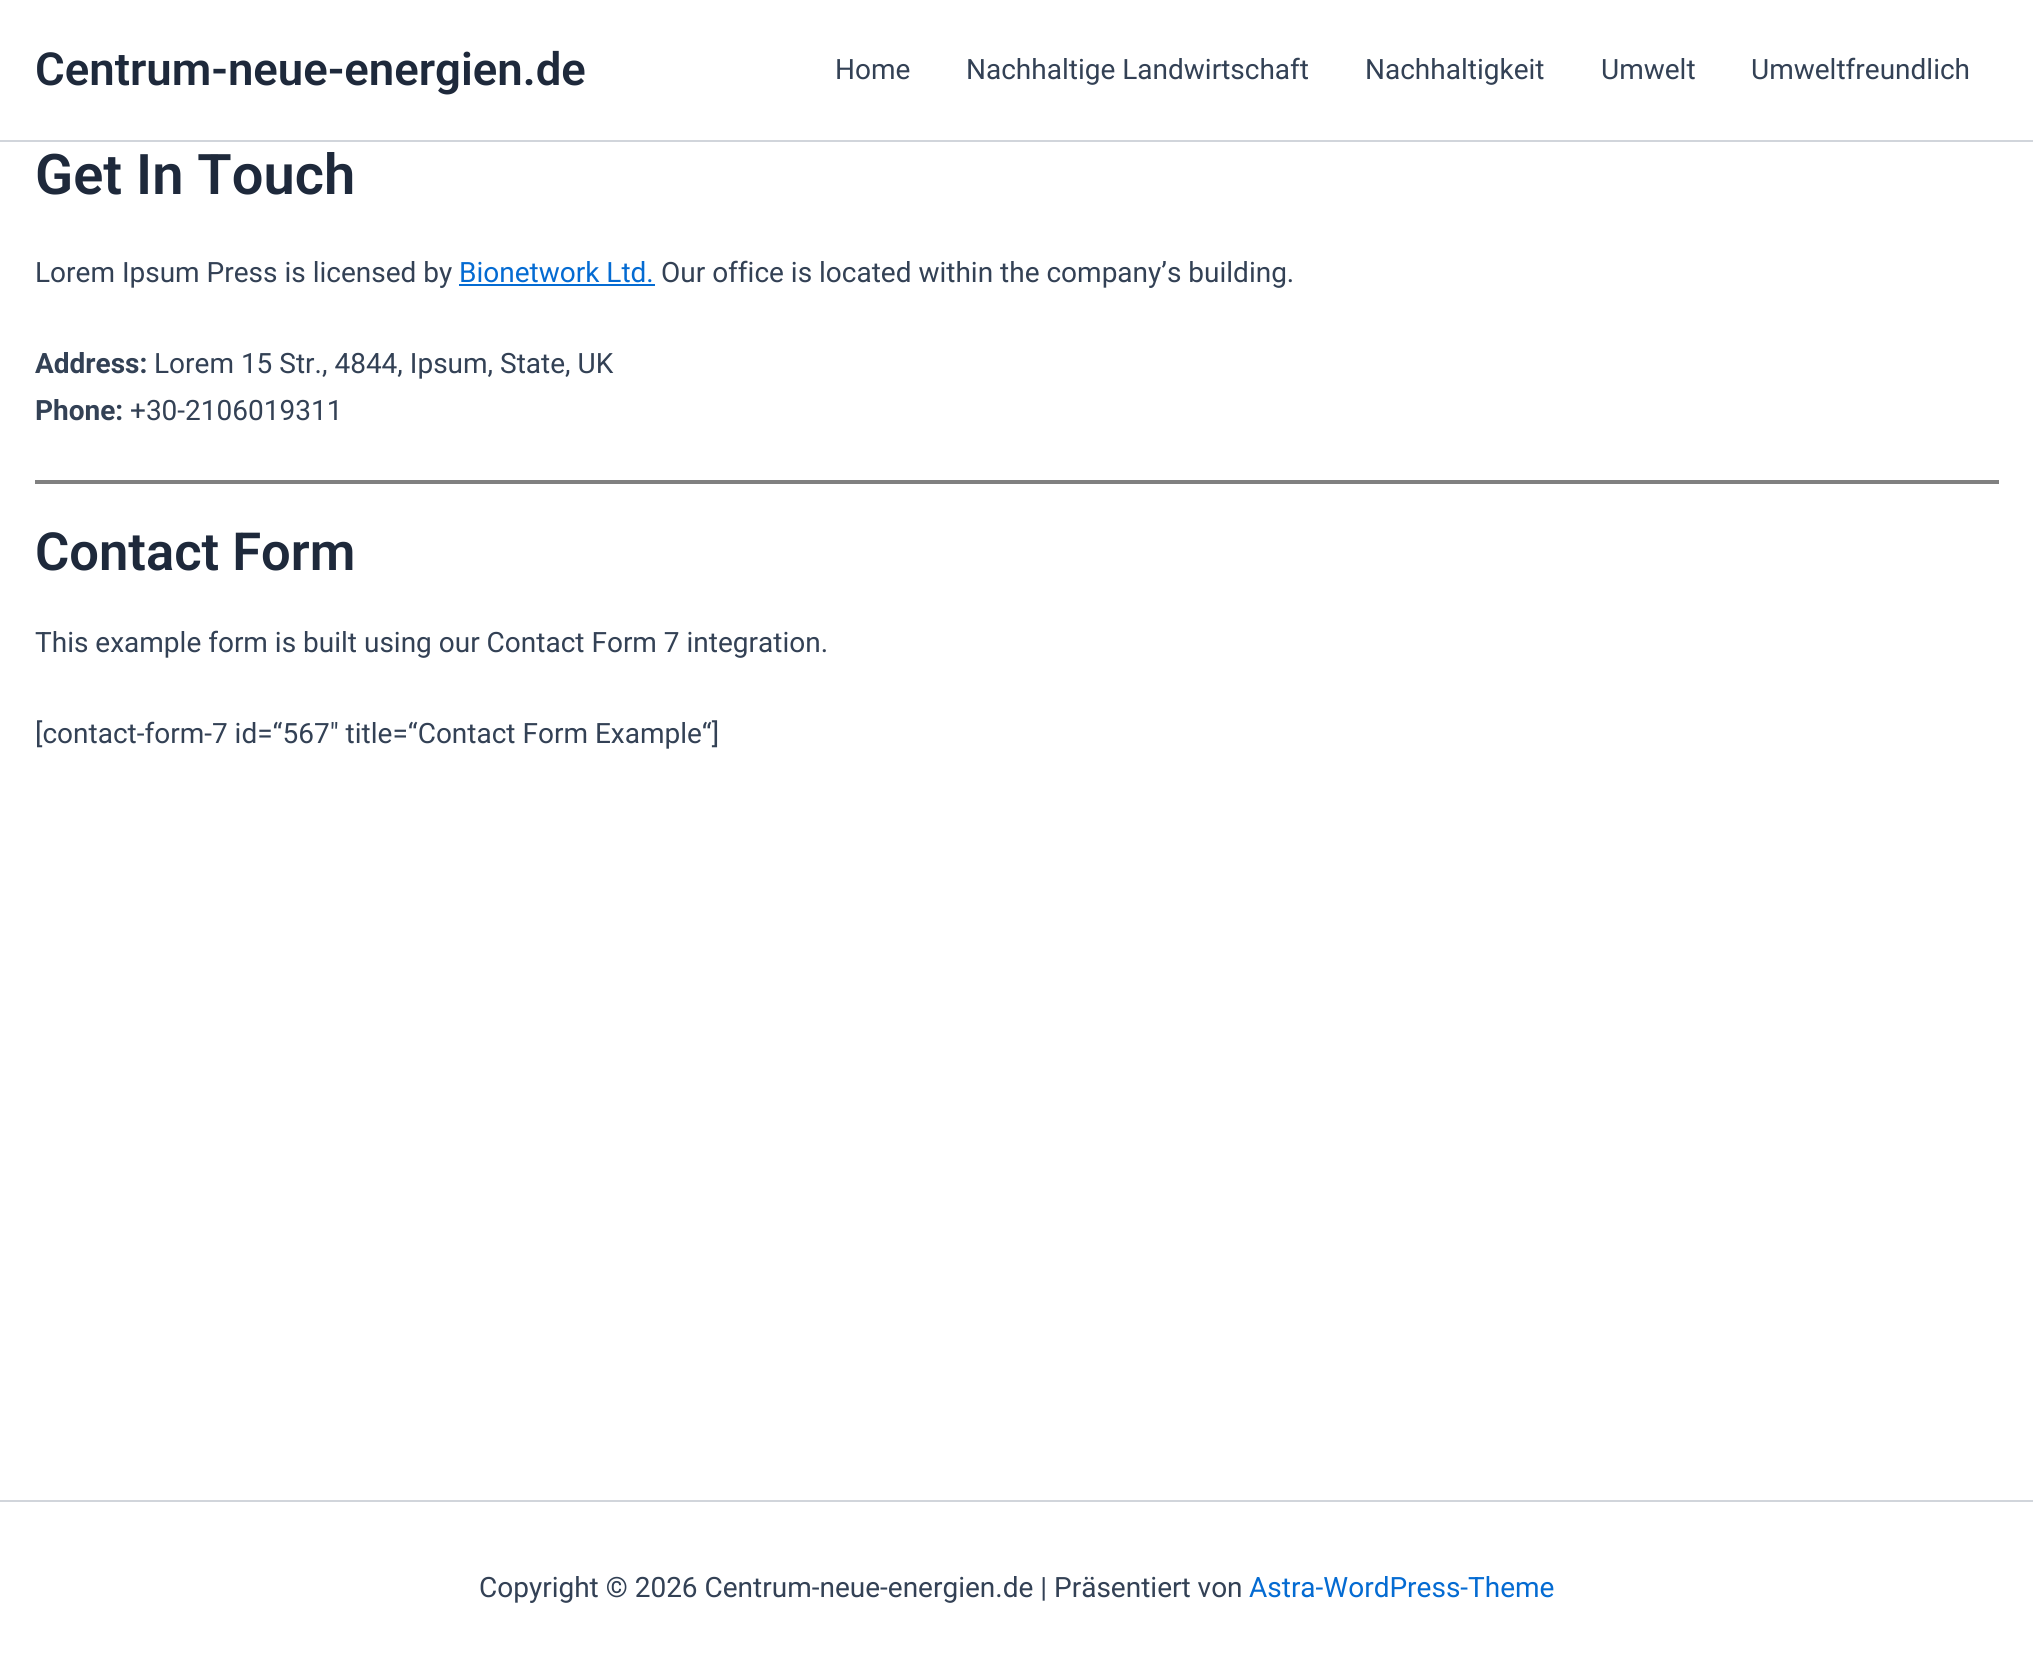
#include <cairo.h>
#include <math.h>
#include <stddef.h>

static cairo_t *ctx;

static void use_color(int r, int g, int b) {
    cairo_set_source_rgb(ctx, r / 255.0, g / 255.0, b / 255.0);
}

int main(void) {
    cairo_surface_t *surface = cairo_image_surface_create(CAIRO_FORMAT_RGB24, 2033, 1675);
    ctx = cairo_create(surface);
    cairo_font_options_t *options = cairo_font_options_create();
    cairo_font_options_set_hint_metrics(options, CAIRO_HINT_METRICS_OFF);
    cairo_font_options_set_hint_style(options, CAIRO_HINT_STYLE_NONE);
    cairo_set_font_options(ctx, options);
    cairo_set_miter_limit(ctx, 4);
    use_color(255, 255, 255);
    cairo_paint(ctx);
    use_color(209, 213, 219);
    cairo_rectangle(ctx, 0, 140, 2033, 2);
    cairo_fill(ctx);
    cairo_select_font_face(ctx, "Roboto SemiBold", CAIRO_FONT_SLANT_NORMAL, CAIRO_FONT_WEIGHT_NORMAL);
    cairo_set_font_size(ctx, 45.5);
    use_color(30, 41, 59);
    cairo_move_to(ctx, 35, 85);
    cairo_show_text(ctx, "Centrum-neue-energien.de");
    cairo_select_font_face(ctx, "Roboto", CAIRO_FONT_SLANT_NORMAL, CAIRO_FONT_WEIGHT_NORMAL);
    cairo_set_font_size(ctx, 28);
    use_color(51, 65, 85);
    cairo_move_to(ctx, 835, 79);
    cairo_show_text(ctx, "Home");
    cairo_move_to(ctx, 966, 79);
    cairo_show_text(ctx, "Nachhaltige Landwirtschaft");
    cairo_move_to(ctx, 1365, 79);
    cairo_show_text(ctx, "Nachhaltigkeit");
    cairo_move_to(ctx, 1601, 79);
    cairo_show_text(ctx, "Umwelt");
    cairo_move_to(ctx, 1751, 79);
    cairo_show_text(ctx, "Umweltfreundlich");
    cairo_select_font_face(ctx, "Roboto SemiBold", CAIRO_FONT_SLANT_NORMAL, CAIRO_FONT_WEIGHT_NORMAL);
    cairo_set_font_size(ctx, 56);
    use_color(30, 41, 59);
    cairo_move_to(ctx, 35, 194);
    cairo_show_text(ctx, "Get In Touch");
    cairo_select_font_face(ctx, "Roboto", CAIRO_FONT_SLANT_NORMAL, CAIRO_FONT_WEIGHT_NORMAL);
    cairo_set_font_size(ctx, 28);
    use_color(51, 65, 85);
    cairo_move_to(ctx, 35, 282);
    cairo_show_text(ctx, "Lorem Ipsum Press is licensed by");
    use_color(4, 107, 210);
    cairo_move_to(ctx, 459, 282);
    cairo_show_text(ctx, "Bionetwork Ltd.");
    cairo_rectangle(ctx, 459, 284, 196, 2);
    cairo_fill(ctx);
    use_color(51, 65, 85);
    cairo_move_to(ctx, 661, 282);
    cairo_show_text(ctx, "Our office is located within the company’s building.");
    cairo_select_font_face(ctx, "Roboto", CAIRO_FONT_SLANT_NORMAL, CAIRO_FONT_WEIGHT_BOLD);
    cairo_move_to(ctx, 35, 373);
    cairo_show_text(ctx, "Address:");
    cairo_select_font_face(ctx, "Roboto", CAIRO_FONT_SLANT_NORMAL, CAIRO_FONT_WEIGHT_NORMAL);
    cairo_move_to(ctx, 154, 373);
    cairo_show_text(ctx, "Lorem 15 Str., 4844, Ipsum, State, UK");
    cairo_select_font_face(ctx, "Roboto", CAIRO_FONT_SLANT_NORMAL, CAIRO_FONT_WEIGHT_BOLD);
    cairo_move_to(ctx, 35, 420);
    cairo_show_text(ctx, "Phone:");
    cairo_select_font_face(ctx, "Roboto", CAIRO_FONT_SLANT_NORMAL, CAIRO_FONT_WEIGHT_NORMAL);
    cairo_move_to(ctx, 130, 420);
    cairo_show_text(ctx, "+30-2106019311");
    use_color(128, 128, 128);
    cairo_rectangle(ctx, 35, 480, 1964, 4);
    cairo_fill(ctx);
    cairo_select_font_face(ctx, "Roboto SemiBold", CAIRO_FONT_SLANT_NORMAL, CAIRO_FONT_WEIGHT_NORMAL);
    cairo_set_font_size(ctx, 52.5);
    use_color(30, 41, 59);
    cairo_move_to(ctx, 35, 570);
    cairo_show_text(ctx, "Contact Form");
    cairo_select_font_face(ctx, "Roboto", CAIRO_FONT_SLANT_NORMAL, CAIRO_FONT_WEIGHT_NORMAL);
    cairo_set_font_size(ctx, 28);
    use_color(51, 65, 85);
    cairo_move_to(ctx, 35, 652);
    cairo_show_text(ctx, "This example form is built using our Contact Form 7 integration.");
    cairo_move_to(ctx, 35, 743);
    cairo_show_text(ctx, "[contact-form-7 id=“567″ title=“Contact Form Example“]");
    use_color(209, 213, 219);
    cairo_rectangle(ctx, 0, 1500, 2033, 2);
    cairo_fill(ctx);
    use_color(51, 65, 85);
    cairo_move_to(ctx, 479, 1597);
    cairo_show_text(ctx, "Copyright © 2026 Centrum-neue-energien.de | Präsentiert von");
    use_color(4, 107, 210);
    cairo_move_to(ctx, 1249, 1597);
    cairo_show_text(ctx, "Astra-WordPress-Theme");
    cairo_surface_write_to_png(surface, "result.png");
    cairo_font_options_destroy(options);
    cairo_destroy(ctx);
    cairo_surface_destroy(surface);
    return 0;
}
